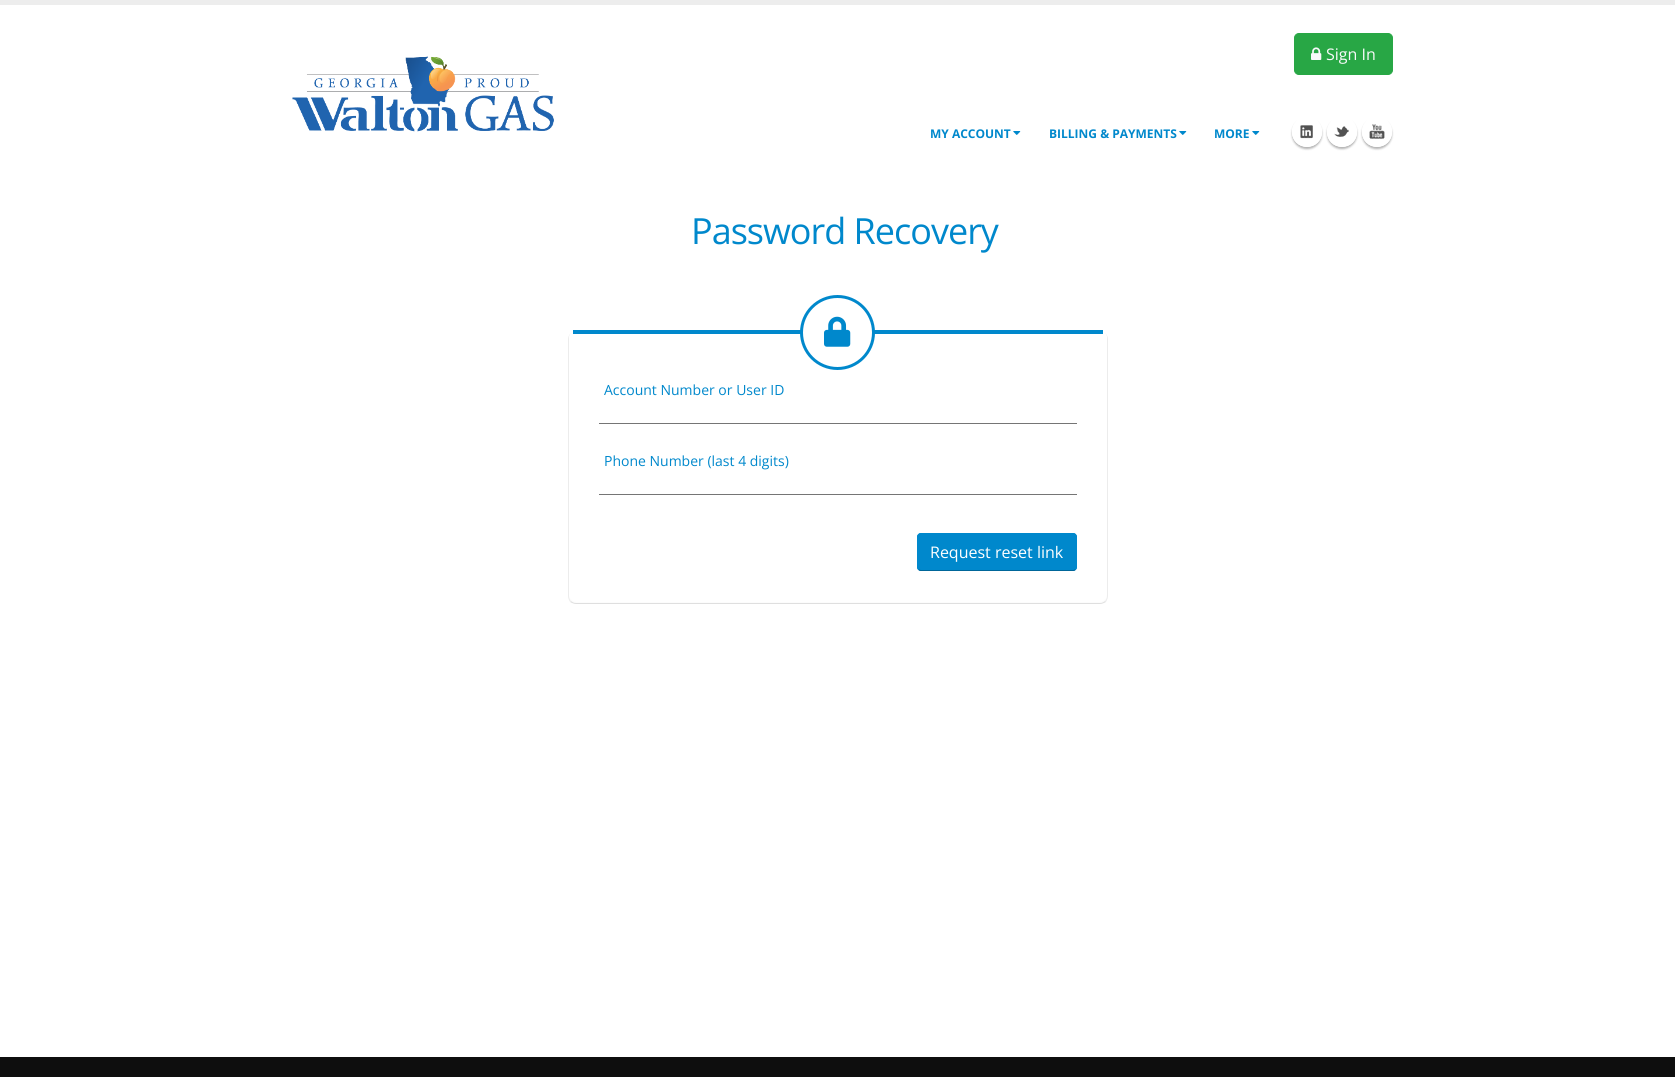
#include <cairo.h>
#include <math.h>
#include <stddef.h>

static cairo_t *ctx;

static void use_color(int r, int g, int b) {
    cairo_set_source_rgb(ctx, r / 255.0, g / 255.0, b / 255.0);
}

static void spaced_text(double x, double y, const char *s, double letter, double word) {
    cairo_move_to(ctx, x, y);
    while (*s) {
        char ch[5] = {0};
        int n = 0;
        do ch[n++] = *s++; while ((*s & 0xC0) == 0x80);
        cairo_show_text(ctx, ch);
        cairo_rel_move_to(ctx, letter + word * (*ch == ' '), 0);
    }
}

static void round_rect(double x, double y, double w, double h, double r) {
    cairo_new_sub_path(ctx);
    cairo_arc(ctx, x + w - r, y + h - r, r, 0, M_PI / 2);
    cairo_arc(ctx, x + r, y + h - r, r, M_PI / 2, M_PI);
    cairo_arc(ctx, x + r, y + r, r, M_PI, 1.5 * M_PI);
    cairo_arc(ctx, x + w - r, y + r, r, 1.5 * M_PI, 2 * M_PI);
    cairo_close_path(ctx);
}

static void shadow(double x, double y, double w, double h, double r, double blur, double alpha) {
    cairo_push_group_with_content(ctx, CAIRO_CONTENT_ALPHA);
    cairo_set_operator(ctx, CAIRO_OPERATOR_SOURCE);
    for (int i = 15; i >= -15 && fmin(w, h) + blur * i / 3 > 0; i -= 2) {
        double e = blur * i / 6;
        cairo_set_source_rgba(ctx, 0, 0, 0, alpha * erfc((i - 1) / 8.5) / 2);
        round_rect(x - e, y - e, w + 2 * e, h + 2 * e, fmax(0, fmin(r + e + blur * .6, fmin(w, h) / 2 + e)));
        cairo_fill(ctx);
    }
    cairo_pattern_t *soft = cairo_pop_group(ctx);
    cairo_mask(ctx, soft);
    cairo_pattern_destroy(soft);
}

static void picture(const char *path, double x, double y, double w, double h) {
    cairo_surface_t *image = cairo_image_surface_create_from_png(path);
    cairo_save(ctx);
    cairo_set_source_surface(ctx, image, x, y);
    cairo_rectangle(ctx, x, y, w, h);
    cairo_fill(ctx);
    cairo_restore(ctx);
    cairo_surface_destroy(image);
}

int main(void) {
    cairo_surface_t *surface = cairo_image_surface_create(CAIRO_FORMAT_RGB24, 1675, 1077);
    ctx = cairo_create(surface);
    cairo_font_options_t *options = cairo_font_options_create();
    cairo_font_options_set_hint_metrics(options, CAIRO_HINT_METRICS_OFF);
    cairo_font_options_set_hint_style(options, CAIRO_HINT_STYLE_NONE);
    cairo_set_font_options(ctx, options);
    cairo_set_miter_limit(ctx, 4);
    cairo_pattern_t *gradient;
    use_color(255, 255, 255);
    cairo_paint(ctx);
    use_color(237, 237, 237);
    cairo_rectangle(ctx, 0, 0, 1675, 5);
    cairo_fill(ctx);
    picture("img1.png", 292, 56, 262, 76);
    use_color(40, 167, 69);
    round_rect(1294.5, 33.5, 98, 41, 4.5);
    cairo_fill_preserve(ctx);
    cairo_set_line_width(ctx, 1);
    cairo_stroke(ctx);
    picture("img2.png", 1311, 47, 11, 13);
    cairo_select_font_face(ctx, "Open Sans", CAIRO_FONT_SLANT_NORMAL, CAIRO_FONT_WEIGHT_NORMAL);
    cairo_set_font_size(ctx, 16);
    use_color(248, 249, 250);
    cairo_move_to(ctx, 1326, 60);
    cairo_show_text(ctx, "Sign In");
    cairo_select_font_face(ctx, "Open Sans", CAIRO_FONT_SLANT_NORMAL, CAIRO_FONT_WEIGHT_BOLD);
    cairo_set_font_size(ctx, 12);
    use_color(0, 136, 204);
    cairo_move_to(ctx, 930, 138);
    cairo_show_text(ctx, "MY ACCOUNT");
    picture("img3.png", 1013, 131, 8, 4);
    cairo_move_to(ctx, 1049, 138);
    cairo_show_text(ctx, "BILLING & PAYMENTS");
    picture("img3.png", 1179, 131, 8, 4);
    cairo_move_to(ctx, 1214, 138);
    cairo_show_text(ctx, "MORE");
    picture("img3.png", 1252, 131, 8, 4);
    cairo_save(ctx);
    cairo_set_fill_rule(ctx, CAIRO_FILL_RULE_EVEN_ODD);
    cairo_new_path(ctx);
    cairo_move_to(ctx, 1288, 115);
    cairo_line_to(ctx, 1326, 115);
    cairo_line_to(ctx, 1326, 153);
    cairo_line_to(ctx, 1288, 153);
    cairo_close_path(ctx);
    cairo_move_to(ctx, 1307, 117);
    cairo_curve_to(ctx, 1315.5, 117, 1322, 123.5, 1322, 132);
    cairo_curve_to(ctx, 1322, 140.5, 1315.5, 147, 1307, 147);
    cairo_curve_to(ctx, 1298.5, 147, 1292, 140.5, 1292, 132);
    cairo_curve_to(ctx, 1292, 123.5, 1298.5, 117, 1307, 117);
    cairo_close_path(ctx);
    cairo_clip(ctx);
    use_color(0, 0, 0);
    shadow(1292, 119, 30, 30, 15, 1, 0.3);
    cairo_restore(ctx);
    picture("img4.png", 1292, 125, 30, 22);
    cairo_save(ctx);
    cairo_set_fill_rule(ctx, CAIRO_FILL_RULE_EVEN_ODD);
    cairo_new_path(ctx);
    cairo_move_to(ctx, 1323, 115);
    cairo_line_to(ctx, 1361, 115);
    cairo_line_to(ctx, 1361, 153);
    cairo_line_to(ctx, 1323, 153);
    cairo_close_path(ctx);
    cairo_move_to(ctx, 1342, 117);
    cairo_curve_to(ctx, 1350.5, 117, 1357, 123.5, 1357, 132);
    cairo_curve_to(ctx, 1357, 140.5, 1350.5, 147, 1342, 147);
    cairo_curve_to(ctx, 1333.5, 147, 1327, 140.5, 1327, 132);
    cairo_curve_to(ctx, 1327, 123.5, 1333.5, 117, 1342, 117);
    cairo_close_path(ctx);
    cairo_clip(ctx);
    use_color(0, 0, 0);
    shadow(1327, 119, 30, 30, 15, 1, 0.3);
    cairo_restore(ctx);
    picture("img5.png", 1327, 126, 30, 21);
    cairo_save(ctx);
    cairo_set_fill_rule(ctx, CAIRO_FILL_RULE_EVEN_ODD);
    cairo_new_path(ctx);
    cairo_move_to(ctx, 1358, 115);
    cairo_line_to(ctx, 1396, 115);
    cairo_line_to(ctx, 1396, 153);
    cairo_line_to(ctx, 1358, 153);
    cairo_close_path(ctx);
    cairo_move_to(ctx, 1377, 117);
    cairo_curve_to(ctx, 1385.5, 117, 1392, 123.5, 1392, 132);
    cairo_curve_to(ctx, 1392, 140.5, 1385.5, 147, 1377, 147);
    cairo_curve_to(ctx, 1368.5, 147, 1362, 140.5, 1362, 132);
    cairo_curve_to(ctx, 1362, 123.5, 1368.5, 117, 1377, 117);
    cairo_close_path(ctx);
    cairo_clip(ctx);
    use_color(0, 0, 0);
    shadow(1362, 119, 30, 30, 15, 1, 0.3);
    cairo_restore(ctx);
    picture("img6.png", 1362, 124, 30, 23);
    cairo_select_font_face(ctx, "Open Sans", CAIRO_FONT_SLANT_NORMAL, CAIRO_FONT_WEIGHT_NORMAL);
    cairo_set_font_size(ctx, 36);
    spaced_text(691, 244, "Password Recovery", -1, 0);
    cairo_save(ctx);
    round_rect(568, 331, 540, 273, 8);
    cairo_clip(ctx);
    gradient = cairo_pattern_create_linear(838, 331, 838, 603);
    cairo_pattern_add_color_stop_rgba(gradient, 0.01, 1, 1, 1, 1);
    cairo_pattern_add_color_stop_rgba(gradient, 0.98, 0.988, 0.988, 0.988, 1);
    cairo_set_source(ctx, gradient);
    cairo_pattern_destroy(gradient);
    cairo_new_path(ctx);
    cairo_move_to(ctx, 576, 331);
    cairo_line_to(ctx, 1100, 331);
    cairo_curve_to(ctx, 1104.5, 331, 1108, 334.5, 1108, 339);
    cairo_line_to(ctx, 1108, 603);
    cairo_line_to(ctx, 568, 603);
    cairo_line_to(ctx, 568, 339);
    cairo_curve_to(ctx, 568, 334.5, 571.5, 331, 576, 331);
    cairo_close_path(ctx);
    cairo_fill(ctx);
    cairo_restore(ctx);
    use_color(236, 236, 236);
    cairo_new_path(ctx);
    cairo_move_to(ctx, 1108, 339);
    cairo_curve_to(ctx, 1108, 335, 1104, 331, 1100, 331);
    cairo_curve_to(ctx, 1104, 331, 1107, 335, 1107, 339);
    cairo_line_to(ctx, 1107, 596);
    cairo_curve_to(ctx, 1107, 598, 1106, 600, 1105, 601);
    cairo_line_to(ctx, 1106, 602);
    cairo_curve_to(ctx, 1107, 600, 1108, 598, 1108, 596);
    cairo_close_path(ctx);
    cairo_fill(ctx);
    use_color(223, 223, 223);
    cairo_new_path(ctx);
    cairo_move_to(ctx, 576, 604);
    cairo_line_to(ctx, 1100, 604);
    cairo_curve_to(ctx, 1102, 604, 1104, 603, 1106, 602);
    cairo_line_to(ctx, 1105, 601);
    cairo_curve_to(ctx, 1104, 602, 1102, 603, 1100, 603);
    cairo_line_to(ctx, 576, 603);
    cairo_curve_to(ctx, 574, 603, 572, 602, 571, 601);
    cairo_line_to(ctx, 570, 602);
    cairo_curve_to(ctx, 572, 603, 574, 604, 576, 604);
    cairo_close_path(ctx);
    cairo_fill(ctx);
    use_color(236, 236, 236);
    cairo_new_path(ctx);
    cairo_move_to(ctx, 568, 339);
    cairo_line_to(ctx, 568, 596);
    cairo_curve_to(ctx, 568, 598, 569, 600, 570, 602);
    cairo_line_to(ctx, 571, 601);
    cairo_curve_to(ctx, 570, 600, 569, 598, 569, 596);
    cairo_line_to(ctx, 569, 339);
    cairo_curve_to(ctx, 569, 335, 572, 331, 576, 331);
    cairo_curve_to(ctx, 572, 331, 568, 335, 568, 339);
    cairo_close_path(ctx);
    cairo_fill(ctx);
    use_color(255, 255, 255);
    round_rect(569, 330, 538, 272, 8);
    cairo_fill(ctx);
    use_color(0, 136, 204);
    cairo_rectangle(ctx, 573, 330, 530, 4);
    cairo_fill(ctx);
    use_color(255, 255, 255);
    cairo_arc(ctx, 837.5, 332.5, 36, 0, 2 * M_PI);
    cairo_fill_preserve(ctx);
    use_color(0, 136, 204);
    cairo_set_line_width(ctx, 3);
    cairo_stroke(ctx);
    picture("img7.png", 824, 316, 27, 31);
    cairo_set_font_size(ctx, 14);
    cairo_move_to(ctx, 604, 395);
    cairo_show_text(ctx, "Account Number or User ID");
    use_color(117, 117, 117);
    cairo_rectangle(ctx, 599, 423, 478, 1);
    cairo_fill(ctx);
    use_color(0, 136, 204);
    cairo_move_to(ctx, 604, 466);
    cairo_show_text(ctx, "Phone Number (last 4 digits)");
    use_color(117, 117, 117);
    cairo_rectangle(ctx, 599, 494, 478, 1);
    cairo_fill(ctx);
    use_color(0, 136, 204);
    round_rect(917, 533, 160, 38, 4);
    cairo_fill(ctx);
    cairo_new_path(ctx);
    cairo_move_to(ctx, 1075.5, 569.5);
    cairo_curve_to(ctx, 1075, 570, 1074, 570.5, 1073, 570.5);
    cairo_line_to(ctx, 921, 570.5);
    cairo_curve_to(ctx, 920, 570.5, 919, 570, 918.5, 569.5);
    use_color(0, 102, 153);
    cairo_set_line_width(ctx, 1);
    cairo_stroke(ctx);
    cairo_new_path(ctx);
    cairo_move_to(ctx, 918.5, 569.5);
    cairo_curve_to(ctx, 918, 569, 917.5, 568, 917.5, 567);
    cairo_line_to(ctx, 917.5, 537);
    cairo_curve_to(ctx, 917.5, 536, 918, 535, 918.5, 534.5);
    cairo_curve_to(ctx, 919, 534, 920, 533.5, 921, 533.5);
    cairo_line_to(ctx, 1073, 533.5);
    cairo_curve_to(ctx, 1074, 533.5, 1075, 534, 1075.5, 534.5);
    cairo_curve_to(ctx, 1076, 535, 1076.5, 536, 1076.5, 537);
    cairo_line_to(ctx, 1076.5, 567);
    cairo_curve_to(ctx, 1076.5, 568, 1076, 569, 1075.5, 569.5);
    use_color(0, 136, 204);
    cairo_stroke(ctx);
    cairo_set_font_size(ctx, 16);
    use_color(255, 255, 255);
    cairo_move_to(ctx, 930, 558);
    cairo_show_text(ctx, "Request reset link");
    use_color(14, 14, 14);
    cairo_rectangle(ctx, 0, 1057, 1675, 20);
    cairo_fill(ctx);
    cairo_surface_write_to_png(surface, "result.png");
    cairo_font_options_destroy(options);
    cairo_destroy(ctx);
    cairo_surface_destroy(surface);
    return 0;
}
